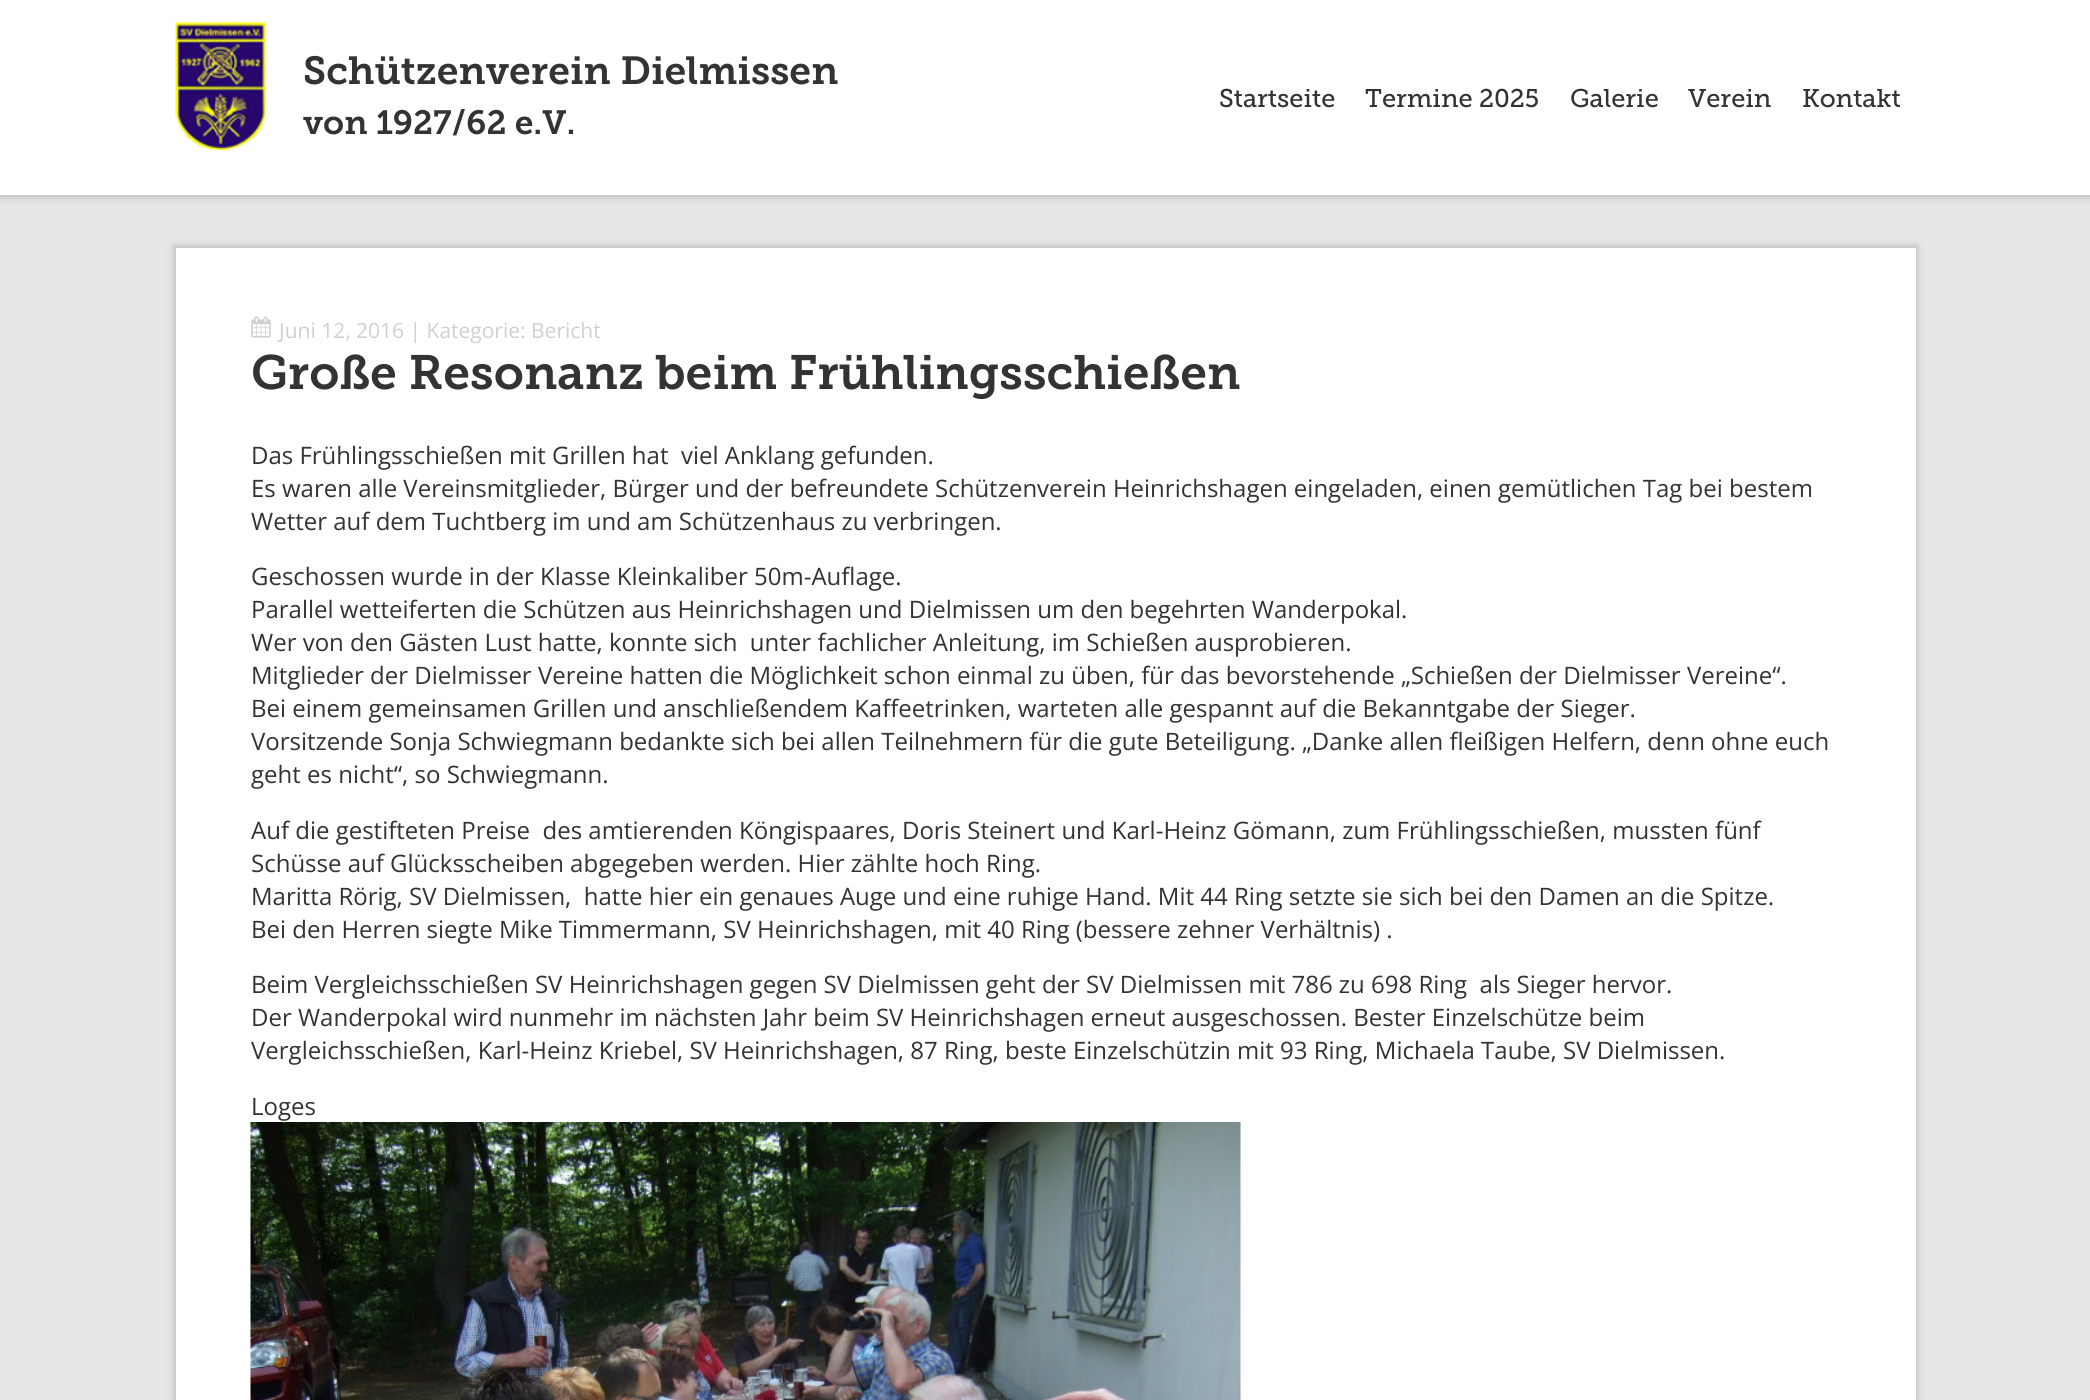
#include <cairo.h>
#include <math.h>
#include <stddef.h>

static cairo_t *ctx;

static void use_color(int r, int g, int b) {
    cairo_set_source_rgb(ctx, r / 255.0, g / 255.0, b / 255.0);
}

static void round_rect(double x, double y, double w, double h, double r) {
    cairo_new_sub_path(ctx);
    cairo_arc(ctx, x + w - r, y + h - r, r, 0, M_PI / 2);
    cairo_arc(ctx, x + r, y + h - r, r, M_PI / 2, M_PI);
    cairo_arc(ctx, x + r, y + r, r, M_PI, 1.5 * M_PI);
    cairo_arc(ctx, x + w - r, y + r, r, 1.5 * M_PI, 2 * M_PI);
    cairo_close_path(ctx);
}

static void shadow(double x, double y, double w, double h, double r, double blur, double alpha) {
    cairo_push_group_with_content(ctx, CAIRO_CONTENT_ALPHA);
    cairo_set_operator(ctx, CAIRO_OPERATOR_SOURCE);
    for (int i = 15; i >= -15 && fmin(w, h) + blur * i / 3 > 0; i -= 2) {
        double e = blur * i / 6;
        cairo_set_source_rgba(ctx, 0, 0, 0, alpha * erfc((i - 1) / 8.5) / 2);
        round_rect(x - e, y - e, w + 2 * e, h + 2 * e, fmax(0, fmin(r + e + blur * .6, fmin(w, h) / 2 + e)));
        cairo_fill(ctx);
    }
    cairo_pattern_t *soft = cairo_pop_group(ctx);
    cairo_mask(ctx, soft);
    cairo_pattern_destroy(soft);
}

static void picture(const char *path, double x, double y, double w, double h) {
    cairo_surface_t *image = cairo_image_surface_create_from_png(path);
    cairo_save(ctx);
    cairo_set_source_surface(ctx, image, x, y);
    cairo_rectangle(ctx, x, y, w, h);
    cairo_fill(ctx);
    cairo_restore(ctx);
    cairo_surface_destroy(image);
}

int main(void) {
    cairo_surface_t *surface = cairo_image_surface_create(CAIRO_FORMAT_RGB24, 2090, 1400);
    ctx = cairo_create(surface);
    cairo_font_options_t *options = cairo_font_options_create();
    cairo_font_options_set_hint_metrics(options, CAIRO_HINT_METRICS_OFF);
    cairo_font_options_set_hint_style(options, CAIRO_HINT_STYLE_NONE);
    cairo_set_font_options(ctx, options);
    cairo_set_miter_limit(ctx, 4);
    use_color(231, 231, 231);
    cairo_paint(ctx);
    use_color(0, 0, 0);
    shadow(-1, -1, 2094, 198, 0, 4, 0.2);
    use_color(255, 255, 255);
    cairo_rectangle(ctx, 0, 0, 2090, 195);
    cairo_fill(ctx);
    picture("img1.png", 175, 21, 92, 129);
    cairo_select_font_face(ctx, "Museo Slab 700 SemiBold", CAIRO_FONT_SLANT_NORMAL, CAIRO_FONT_WEIGHT_NORMAL);
    cairo_set_font_size(ctx, 39);
    use_color(51, 51, 51);
    cairo_move_to(ctx, 303, 84);
    cairo_show_text(ctx, "Schützenverein Dielmissen");
    cairo_set_font_size(ctx, 33.5);
    cairo_move_to(ctx, 303, 134);
    cairo_show_text(ctx, "von 1927/62 e.V.");
    cairo_select_font_face(ctx, "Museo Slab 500", CAIRO_FONT_SLANT_NORMAL, CAIRO_FONT_WEIGHT_NORMAL);
    cairo_set_font_size(ctx, 25.5);
    cairo_move_to(ctx, 1219, 107);
    cairo_show_text(ctx, "Startseite");
    cairo_move_to(ctx, 1365, 107);
    cairo_show_text(ctx, "Termine 2025");
    cairo_move_to(ctx, 1570, 107);
    cairo_show_text(ctx, "Galerie");
    cairo_move_to(ctx, 1688, 107);
    cairo_show_text(ctx, "Verein");
    cairo_move_to(ctx, 1802, 107);
    cairo_show_text(ctx, "Kontakt");
    use_color(0, 0, 0);
    shadow(174, 246, 1743, 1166, 0, 4, 0.2);
    use_color(255, 255, 255);
    cairo_rectangle(ctx, 176, 248, 1740, 1152);
    cairo_fill(ctx);
    picture("img2.png", 251, 316, 20, 22);
    cairo_select_font_face(ctx, "Open Sans", CAIRO_FONT_SLANT_NORMAL, CAIRO_FONT_WEIGHT_NORMAL);
    cairo_set_font_size(ctx, 21);
    use_color(209, 208, 209);
    cairo_move_to(ctx, 279, 338);
    cairo_show_text(ctx, "Juni 12, 2016 | Kategorie: Bericht");
    cairo_select_font_face(ctx, "Museo Slab 700 SemiBold", CAIRO_FONT_SLANT_NORMAL, CAIRO_FONT_WEIGHT_NORMAL);
    cairo_set_font_size(ctx, 48);
    use_color(51, 51, 51);
    cairo_move_to(ctx, 251, 389);
    cairo_show_text(ctx, "Große Resonanz beim Frühlingsschießen");
    cairo_select_font_face(ctx, "Open Sans", CAIRO_FONT_SLANT_NORMAL, CAIRO_FONT_WEIGHT_NORMAL);
    cairo_set_font_size(ctx, 24);
    cairo_move_to(ctx, 251, 464);
    cairo_show_text(ctx, "Das Frühlingsschießen mit Grillen hat  viel Anklang gefunden.");
    cairo_move_to(ctx, 251, 497);
    cairo_show_text(ctx, "Es waren alle Vereinsmitglieder, Bürger und der befreundete Schützenverein Heinrichshagen eingeladen, einen gemütlichen Tag bei bestem");
    cairo_move_to(ctx, 251, 530);
    cairo_show_text(ctx, "Wetter auf dem Tuchtberg im und am Schützenhaus zu verbringen.");
    cairo_move_to(ctx, 251, 585);
    cairo_show_text(ctx, "Geschossen wurde in der Klasse Kleinkaliber 50m-Auflage.");
    cairo_move_to(ctx, 251, 618);
    cairo_show_text(ctx, "Parallel wetteiferten die Schützen aus Heinrichshagen und Dielmissen um den begehrten Wanderpokal.");
    cairo_move_to(ctx, 251, 651);
    cairo_show_text(ctx, "Wer von den Gästen Lust hatte, konnte sich  unter fachlicher Anleitung, im Schießen ausprobieren.");
    cairo_move_to(ctx, 251, 684);
    cairo_show_text(ctx, "Mitglieder der Dielmisser Vereine hatten die Möglichkeit schon einmal zu üben, für das bevorstehende „Schießen der Dielmisser Vereine“.");
    cairo_move_to(ctx, 251, 717);
    cairo_show_text(ctx, "Bei einem gemeinsamen Grillen und anschließendem Kaffeetrinken, warteten alle gespannt auf die Bekanntgabe der Sieger.");
    cairo_move_to(ctx, 251, 750);
    cairo_show_text(ctx, "Vorsitzende Sonja Schwiegmann bedankte sich bei allen Teilnehmern für die gute Beteiligung. „Danke allen fleißigen Helfern, denn ohne euch");
    cairo_move_to(ctx, 251, 783);
    cairo_show_text(ctx, "geht es nicht“, so Schwiegmann.");
    cairo_move_to(ctx, 251, 839);
    cairo_show_text(ctx, "Auf die gestifteten Preise  des amtierenden Köngispaares, Doris Steinert und Karl-Heinz Gömann, zum Frühlingsschießen, mussten fünf");
    cairo_move_to(ctx, 251, 872);
    cairo_show_text(ctx, "Schüsse auf Glücksscheiben abgegeben werden. Hier zählte hoch Ring.");
    cairo_move_to(ctx, 251, 905);
    cairo_show_text(ctx, "Maritta Rörig, SV Dielmissen,  hatte hier ein genaues Auge und eine ruhige Hand. Mit 44 Ring setzte sie sich bei den Damen an die Spitze.");
    cairo_move_to(ctx, 251, 938);
    cairo_show_text(ctx, "Bei den Herren siegte Mike Timmermann, SV Heinrichshagen, mit 40 Ring (bessere zehner Verhältnis) .");
    cairo_move_to(ctx, 251, 993);
    cairo_show_text(ctx, "Beim Vergleichsschießen SV Heinrichshagen gegen SV Dielmissen geht der SV Dielmissen mit 786 zu 698 Ring  als Sieger hervor.");
    cairo_move_to(ctx, 251, 1026);
    cairo_show_text(ctx, "Der Wanderpokal wird nunmehr im nächsten Jahr beim SV Heinrichshagen erneut ausgeschossen. Bester Einzelschütze beim");
    cairo_move_to(ctx, 251, 1059);
    cairo_show_text(ctx, "Vergleichsschießen, Karl-Heinz Kriebel, SV Heinrichshagen, 87 Ring, beste Einzelschützin mit 93 Ring, Michaela Taube, SV Dielmissen.");
    cairo_move_to(ctx, 251, 1115);
    cairo_show_text(ctx, "Loges");
    picture("img3.png", 250, 1122, 991, 278);
    cairo_surface_write_to_png(surface, "result.png");
    cairo_font_options_destroy(options);
    cairo_destroy(ctx);
    cairo_surface_destroy(surface);
    return 0;
}
